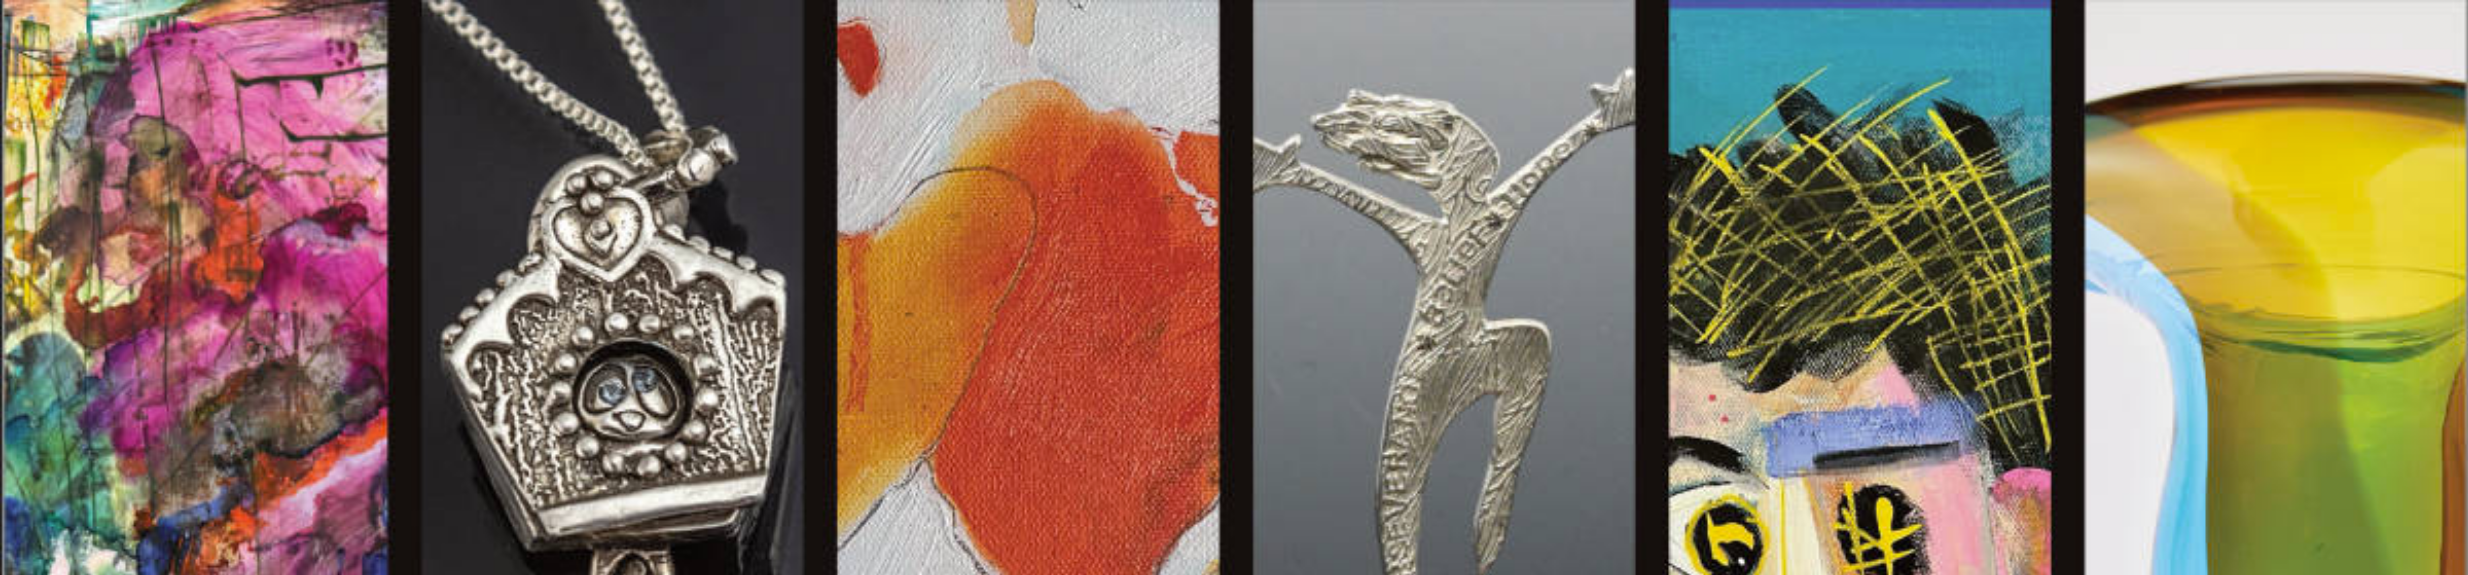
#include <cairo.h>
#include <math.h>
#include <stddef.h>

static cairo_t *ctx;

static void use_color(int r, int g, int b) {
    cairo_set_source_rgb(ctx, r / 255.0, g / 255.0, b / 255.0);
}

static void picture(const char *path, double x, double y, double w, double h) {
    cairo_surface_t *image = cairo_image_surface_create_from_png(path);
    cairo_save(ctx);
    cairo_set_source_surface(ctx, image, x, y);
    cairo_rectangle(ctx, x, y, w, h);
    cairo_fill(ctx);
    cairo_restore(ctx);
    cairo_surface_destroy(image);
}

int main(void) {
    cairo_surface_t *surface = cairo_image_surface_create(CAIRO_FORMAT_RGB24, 2468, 575);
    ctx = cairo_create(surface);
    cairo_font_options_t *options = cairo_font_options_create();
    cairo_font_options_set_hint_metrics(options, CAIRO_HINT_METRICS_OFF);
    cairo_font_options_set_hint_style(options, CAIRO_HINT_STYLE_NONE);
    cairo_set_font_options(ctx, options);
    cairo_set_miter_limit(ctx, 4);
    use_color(255, 255, 255);
    cairo_paint(ctx);
    picture("img1.png", 0, 0, 2468, 575);
    cairo_surface_write_to_png(surface, "result.png");
    cairo_font_options_destroy(options);
    cairo_destroy(ctx);
    cairo_surface_destroy(surface);
    return 0;
}
